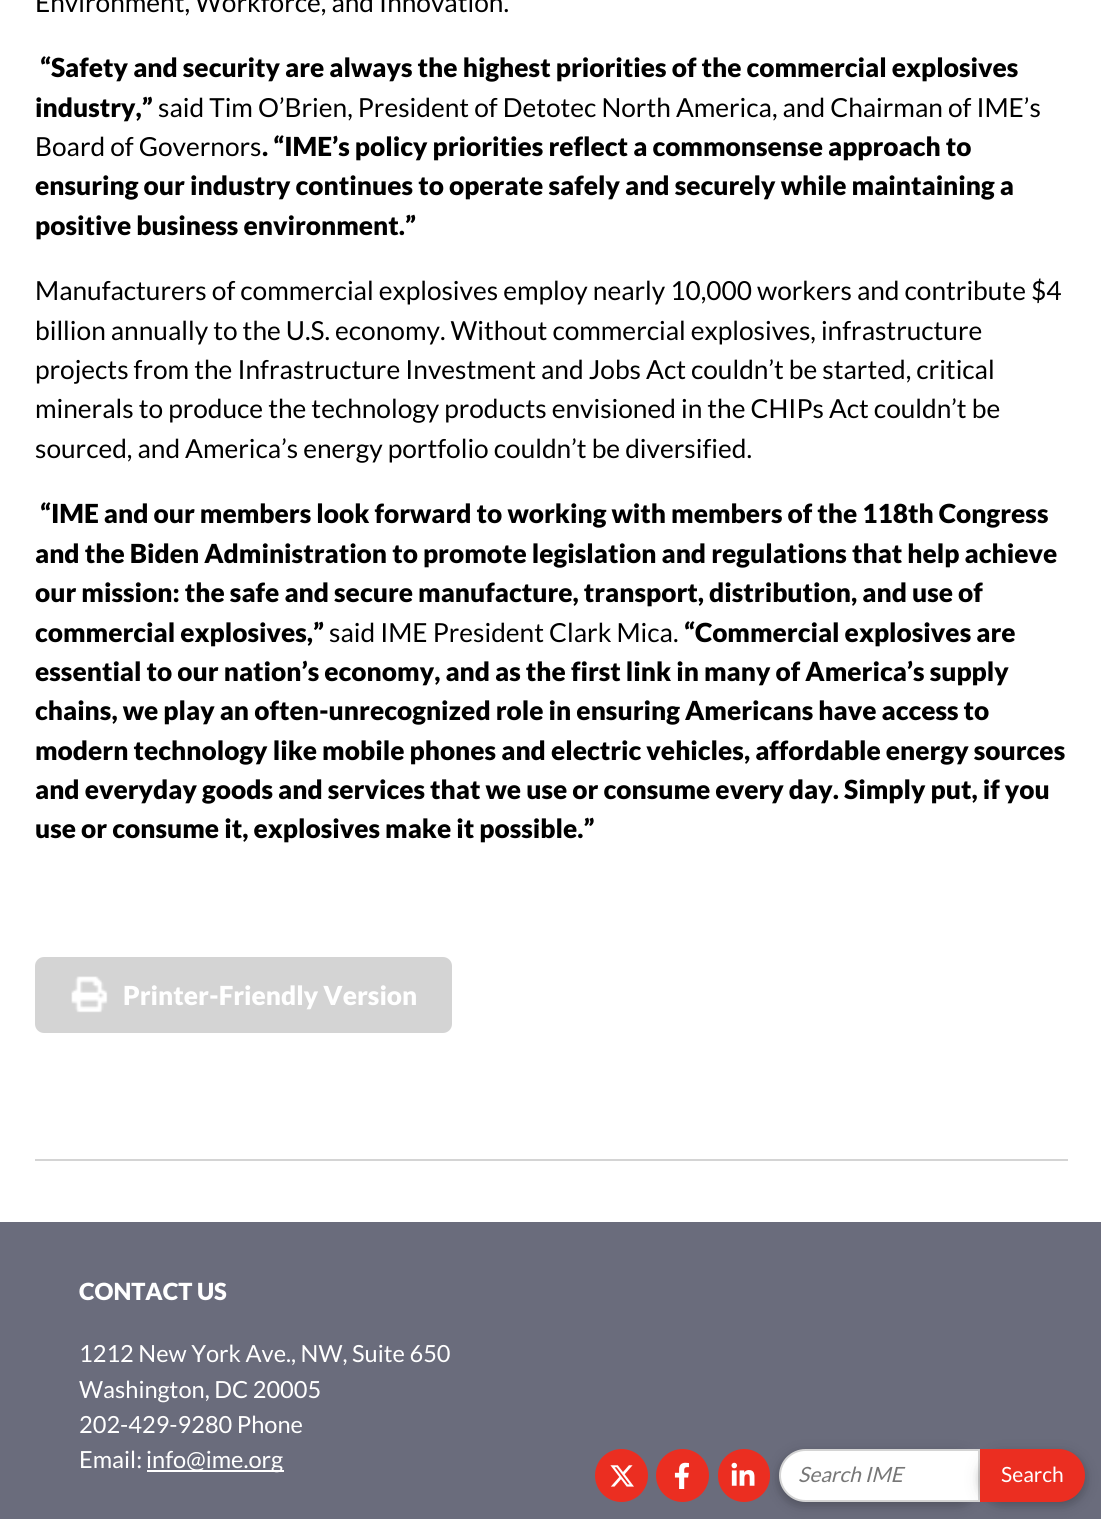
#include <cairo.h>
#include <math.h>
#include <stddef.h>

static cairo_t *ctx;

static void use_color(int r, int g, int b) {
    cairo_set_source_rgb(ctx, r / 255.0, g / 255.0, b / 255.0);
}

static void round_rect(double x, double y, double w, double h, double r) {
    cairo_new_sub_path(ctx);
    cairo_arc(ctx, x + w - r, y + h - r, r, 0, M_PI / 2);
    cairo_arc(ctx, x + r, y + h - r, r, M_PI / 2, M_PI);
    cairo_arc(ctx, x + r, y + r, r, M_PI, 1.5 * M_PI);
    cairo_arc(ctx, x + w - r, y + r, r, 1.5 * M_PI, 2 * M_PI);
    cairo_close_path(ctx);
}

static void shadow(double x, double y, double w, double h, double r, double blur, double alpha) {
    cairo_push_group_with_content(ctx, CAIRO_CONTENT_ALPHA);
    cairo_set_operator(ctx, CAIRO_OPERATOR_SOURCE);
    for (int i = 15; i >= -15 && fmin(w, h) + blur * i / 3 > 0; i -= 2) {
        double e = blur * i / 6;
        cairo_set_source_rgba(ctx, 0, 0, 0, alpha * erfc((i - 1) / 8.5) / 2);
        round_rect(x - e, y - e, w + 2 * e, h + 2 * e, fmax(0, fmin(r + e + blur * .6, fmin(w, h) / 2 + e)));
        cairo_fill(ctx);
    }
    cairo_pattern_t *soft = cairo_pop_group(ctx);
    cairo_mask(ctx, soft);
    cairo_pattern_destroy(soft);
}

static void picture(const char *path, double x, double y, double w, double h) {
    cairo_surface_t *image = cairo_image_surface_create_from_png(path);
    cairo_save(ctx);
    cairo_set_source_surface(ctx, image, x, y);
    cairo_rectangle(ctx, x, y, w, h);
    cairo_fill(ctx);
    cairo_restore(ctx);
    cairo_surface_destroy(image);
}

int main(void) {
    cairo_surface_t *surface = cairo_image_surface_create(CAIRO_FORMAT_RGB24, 1101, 1519);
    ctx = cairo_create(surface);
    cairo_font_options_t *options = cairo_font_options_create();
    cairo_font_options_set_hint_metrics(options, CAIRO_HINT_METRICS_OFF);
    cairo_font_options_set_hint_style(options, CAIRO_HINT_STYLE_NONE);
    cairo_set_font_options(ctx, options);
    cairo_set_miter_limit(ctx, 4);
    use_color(106, 108, 124);
    cairo_paint(ctx);
    use_color(255, 255, 255);
    cairo_rectangle(ctx, 0, 0, 1101, 1222);
    cairo_fill(ctx);
    cairo_select_font_face(ctx, "Lato", CAIRO_FONT_SLANT_NORMAL, CAIRO_FONT_WEIGHT_NORMAL);
    cairo_set_font_size(ctx, 26.25);
    use_color(0, 0, 0);
    cairo_move_to(ctx, 35, 12);
    cairo_show_text(ctx, "Environment, Workforce, and Innovation.");
    cairo_select_font_face(ctx, "Lato Black", CAIRO_FONT_SLANT_NORMAL, CAIRO_FONT_WEIGHT_NORMAL);
    cairo_move_to(ctx, 40, 77);
    cairo_show_text(ctx, "“Safety and security are always the highest priorities of the commercial explosives");
    cairo_move_to(ctx, 35, 117);
    cairo_show_text(ctx, "industry,”");
    cairo_select_font_face(ctx, "Lato", CAIRO_FONT_SLANT_NORMAL, CAIRO_FONT_WEIGHT_NORMAL);
    cairo_move_to(ctx, 158, 117);
    cairo_show_text(ctx, "said Tim O’Brien, President of Detotec North America, and Chairman of IME’s");
    cairo_move_to(ctx, 35, 156);
    cairo_show_text(ctx, "Board of Governors");
    cairo_select_font_face(ctx, "Lato Black", CAIRO_FONT_SLANT_NORMAL, CAIRO_FONT_WEIGHT_NORMAL);
    cairo_move_to(ctx, 262, 156);
    cairo_show_text(ctx, ". “IME’s policy priorities reflect a commonsense approach to");
    cairo_move_to(ctx, 35, 195);
    cairo_show_text(ctx, "ensuring our industry continues to operate safely and securely while maintaining a");
    cairo_move_to(ctx, 35, 235);
    cairo_show_text(ctx, "positive business environment.”");
    cairo_select_font_face(ctx, "Lato", CAIRO_FONT_SLANT_NORMAL, CAIRO_FONT_WEIGHT_NORMAL);
    cairo_move_to(ctx, 35, 300);
    cairo_show_text(ctx, "Manufacturers of commercial explosives employ nearly 10,000 workers and contribute $4");
    cairo_move_to(ctx, 35, 340);
    cairo_show_text(ctx, "billion annually to the U.S. economy. Without commercial explosives, infrastructure");
    cairo_move_to(ctx, 35, 379);
    cairo_show_text(ctx, "projects from the Infrastructure Investment and Jobs Act couldn’t be started, critical");
    cairo_move_to(ctx, 35, 418);
    cairo_show_text(ctx, "minerals to produce the technology products envisioned in the CHIPs Act couldn’t be");
    cairo_move_to(ctx, 35, 458);
    cairo_show_text(ctx, "sourced, and America’s energy portfolio couldn’t be diversified.");
    cairo_select_font_face(ctx, "Lato Black", CAIRO_FONT_SLANT_NORMAL, CAIRO_FONT_WEIGHT_NORMAL);
    cairo_move_to(ctx, 40, 523);
    cairo_show_text(ctx, "“IME and our members look forward to working with members of the 118th Congress");
    cairo_move_to(ctx, 35, 563);
    cairo_show_text(ctx, "and the Biden Administration to promote legislation and regulations that help achieve");
    cairo_move_to(ctx, 35, 602);
    cairo_show_text(ctx, "our mission: the safe and secure manufacture, transport, distribution, and use of");
    cairo_move_to(ctx, 35, 642);
    cairo_show_text(ctx, "commercial explosives,”");
    cairo_select_font_face(ctx, "Lato", CAIRO_FONT_SLANT_NORMAL, CAIRO_FONT_WEIGHT_NORMAL);
    cairo_move_to(ctx, 329, 642);
    cairo_show_text(ctx, "said IME President Clark Mica.");
    cairo_select_font_face(ctx, "Lato Black", CAIRO_FONT_SLANT_NORMAL, CAIRO_FONT_WEIGHT_NORMAL);
    cairo_move_to(ctx, 684, 642);
    cairo_show_text(ctx, "“Commercial explosives are");
    cairo_move_to(ctx, 35, 681);
    cairo_show_text(ctx, "essential to our nation’s economy, and as the first link in many of America’s supply");
    cairo_move_to(ctx, 35, 720);
    cairo_show_text(ctx, "chains, we play an often-unrecognized role in ensuring Americans have access to");
    cairo_move_to(ctx, 35, 760);
    cairo_show_text(ctx, "modern technology like mobile phones and electric vehicles, affordable energy sources");
    cairo_move_to(ctx, 35, 799);
    cairo_show_text(ctx, "and everyday goods and services that we use or consume every day. Simply put, if you");
    cairo_move_to(ctx, 35, 838);
    cairo_show_text(ctx, "use or consume it, explosives make it possible.”");
    use_color(212, 212, 212);
    round_rect(35, 957, 417, 76, 9);
    cairo_fill(ctx);
    picture("img1.png", 71, 976, 37, 37);
    use_color(255, 255, 255);
    cairo_move_to(ctx, 123, 1005);
    cairo_show_text(ctx, "Printer-Friendly Version");
    use_color(212, 212, 212);
    cairo_rectangle(ctx, 35, 1159, 1033, 2);
    cairo_fill(ctx);
    cairo_set_font_size(ctx, 23.6);
    use_color(255, 255, 255);
    cairo_move_to(ctx, 79, 1300);
    cairo_show_text(ctx, "CONTACT US");
    cairo_select_font_face(ctx, "Lato", CAIRO_FONT_SLANT_NORMAL, CAIRO_FONT_WEIGHT_NORMAL);
    cairo_move_to(ctx, 79, 1362);
    cairo_show_text(ctx, "1212 New York Ave., NW, Suite 650");
    cairo_move_to(ctx, 79, 1398);
    cairo_show_text(ctx, "Washington, DC 20005");
    cairo_move_to(ctx, 79, 1433);
    cairo_show_text(ctx, "202-429-9280 Phone");
    cairo_move_to(ctx, 79, 1468);
    cairo_show_text(ctx, "Email:");
    cairo_rectangle(ctx, 147, 1470, 137, 2);
    cairo_fill(ctx);
    cairo_move_to(ctx, 146, 1468);
    cairo_show_text(ctx, "info@ime.org");
    use_color(235, 46, 33);
    cairo_new_path(ctx);
    cairo_arc(ctx, 621.5, 1475.5, 26.5, 0, 2 * M_PI);
    cairo_fill(ctx);
    picture("img2.png", 610, 1465, 24, 22);
    cairo_arc(ctx, 682.5, 1475.5, 26.5, 0, 2 * M_PI);
    cairo_fill(ctx);
    picture("img3.png", 674, 1462, 15, 27);
    use_color(0, 0, 0);
    shadow(779, 1453, 201, 52, 26, 9, 0.12);
    shadow(779, 1453, 201, 52, 26, 4.5, 0.16);
    use_color(235, 46, 33);
    round_rect(718, 1449, 52, 53, 26);
    cairo_fill(ctx);
    picture("img4.png", 731, 1462, 24, 24);
    use_color(255, 255, 255);
    cairo_new_path(ctx);
    cairo_move_to(ctx, 805.5, 1450);
    cairo_line_to(ctx, 979, 1450);
    cairo_line_to(ctx, 979, 1501);
    cairo_line_to(ctx, 805.5, 1501);
    cairo_curve_to(ctx, 791.5, 1501, 780, 1489.5, 780, 1475.5);
    cairo_curve_to(ctx, 780, 1461.5, 791.5, 1450, 805.5, 1450);
    cairo_close_path(ctx);
    cairo_fill_preserve(ctx);
    use_color(212, 212, 212);
    cairo_stroke(ctx);
    cairo_select_font_face(ctx, "Lato", CAIRO_FONT_SLANT_ITALIC, CAIRO_FONT_WEIGHT_NORMAL);
    cairo_set_font_size(ctx, 21);
    use_color(119, 119, 119);
    cairo_move_to(ctx, 798, 1482);
    cairo_show_text(ctx, "Search IME");
    use_color(0, 0, 0);
    shadow(980, 1453, 105, 52, 26, 9, 0.12);
    shadow(980, 1453, 105, 52, 26, 4.5, 0.16);
    use_color(235, 46, 33);
    cairo_new_path(ctx);
    cairo_move_to(ctx, 980, 1449);
    cairo_line_to(ctx, 1058.5, 1449);
    cairo_curve_to(ctx, 1073, 1449, 1085, 1461, 1085, 1475.5);
    cairo_curve_to(ctx, 1085, 1490, 1073, 1502, 1058.5, 1502);
    cairo_line_to(ctx, 980, 1502);
    cairo_close_path(ctx);
    cairo_fill(ctx);
    cairo_select_font_face(ctx, "Lato", CAIRO_FONT_SLANT_NORMAL, CAIRO_FONT_WEIGHT_NORMAL);
    use_color(255, 255, 255);
    cairo_move_to(ctx, 1001, 1482);
    cairo_show_text(ctx, "Search");
    cairo_surface_write_to_png(surface, "result.png");
    cairo_font_options_destroy(options);
    cairo_destroy(ctx);
    cairo_surface_destroy(surface);
    return 0;
}
